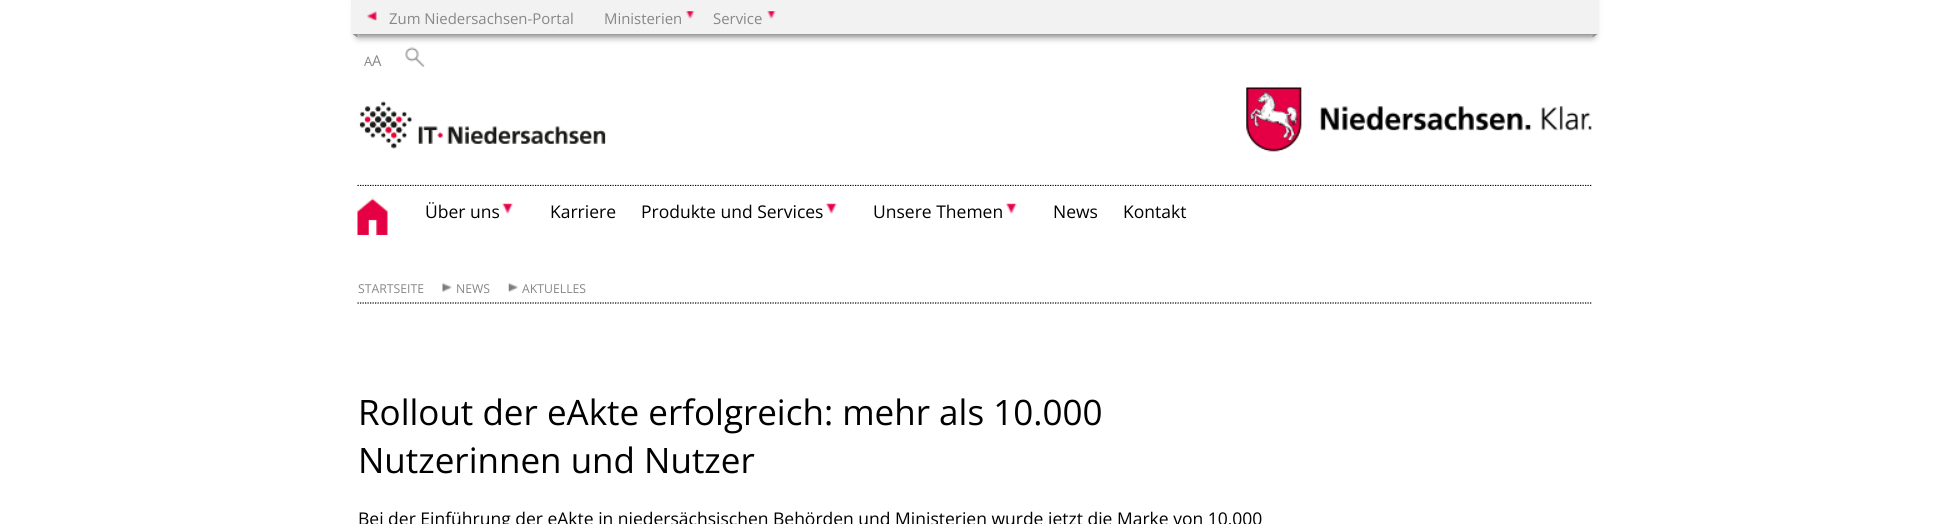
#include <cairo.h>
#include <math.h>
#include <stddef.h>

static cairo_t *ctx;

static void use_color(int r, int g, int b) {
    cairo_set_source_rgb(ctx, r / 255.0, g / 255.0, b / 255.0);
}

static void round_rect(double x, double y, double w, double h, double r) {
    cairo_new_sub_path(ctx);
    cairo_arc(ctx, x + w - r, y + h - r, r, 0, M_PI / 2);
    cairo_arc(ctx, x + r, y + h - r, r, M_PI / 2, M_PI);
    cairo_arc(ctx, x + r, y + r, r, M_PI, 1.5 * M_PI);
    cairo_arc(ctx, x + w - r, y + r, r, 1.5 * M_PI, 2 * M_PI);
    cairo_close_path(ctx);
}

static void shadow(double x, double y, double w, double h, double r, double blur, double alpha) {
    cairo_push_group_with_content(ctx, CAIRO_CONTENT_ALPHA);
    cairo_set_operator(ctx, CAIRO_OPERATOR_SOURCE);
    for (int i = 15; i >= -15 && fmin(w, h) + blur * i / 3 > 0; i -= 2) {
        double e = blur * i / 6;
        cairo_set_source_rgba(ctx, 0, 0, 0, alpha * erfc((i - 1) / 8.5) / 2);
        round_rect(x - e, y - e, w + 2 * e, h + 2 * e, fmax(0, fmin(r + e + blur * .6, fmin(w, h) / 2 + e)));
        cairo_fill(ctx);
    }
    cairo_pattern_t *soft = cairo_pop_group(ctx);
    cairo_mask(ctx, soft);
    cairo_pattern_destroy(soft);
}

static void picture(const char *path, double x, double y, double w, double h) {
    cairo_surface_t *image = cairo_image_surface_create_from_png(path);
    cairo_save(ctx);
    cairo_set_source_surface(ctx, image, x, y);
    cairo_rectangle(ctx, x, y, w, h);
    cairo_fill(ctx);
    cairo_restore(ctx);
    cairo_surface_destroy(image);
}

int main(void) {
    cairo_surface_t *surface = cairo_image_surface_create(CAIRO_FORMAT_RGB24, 1950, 524);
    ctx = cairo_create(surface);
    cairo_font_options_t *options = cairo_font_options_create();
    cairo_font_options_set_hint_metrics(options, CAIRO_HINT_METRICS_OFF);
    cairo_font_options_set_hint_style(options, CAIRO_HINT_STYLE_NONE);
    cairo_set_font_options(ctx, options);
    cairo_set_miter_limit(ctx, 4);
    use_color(255, 255, 255);
    cairo_paint(ctx);
    picture("img4.png", 404, 47, 21, 21);
    use_color(102, 102, 102);
    shadow(358, 3, 1235, 33, 0, 4, 1);
    use_color(242, 242, 242);
    cairo_rectangle(ctx, 351, 0, 1248, 34);
    cairo_fill(ctx);
    picture("img1.png", 366, 11, 11, 10);
    cairo_select_font_face(ctx, "Open Sans", CAIRO_FONT_SLANT_NORMAL, CAIRO_FONT_WEIGHT_NORMAL);
    cairo_set_font_size(ctx, 14.9);
    use_color(135, 135, 135);
    cairo_move_to(ctx, 389, 24);
    cairo_show_text(ctx, "Zum Niedersachsen-Portal");
    cairo_move_to(ctx, 604, 24);
    cairo_show_text(ctx, "Ministerien");
    picture("img2.png", 685, 11, 10, 8);
    cairo_move_to(ctx, 713, 24);
    cairo_show_text(ctx, "Service");
    picture("img3.png", 767, 11, 9, 8);
    use_color(144, 144, 143);
    cairo_new_path(ctx);
    cairo_move_to(ctx, 357.5, 34);
    cairo_line_to(ctx, 357.5, 37.5);
    cairo_line_to(ctx, 352.5, 34);
    cairo_close_path(ctx);
    cairo_fill(ctx);
    cairo_new_path(ctx);
    cairo_move_to(ctx, 1592.5, 37.5);
    cairo_line_to(ctx, 1592.5, 34);
    cairo_line_to(ctx, 1597.5, 34);
    cairo_close_path(ctx);
    cairo_fill(ctx);
    cairo_set_font_size(ctx, 13);
    use_color(135, 135, 135);
    cairo_move_to(ctx, 364, 66);
    cairo_show_text(ctx, "A");
    cairo_set_font_size(ctx, 14.9);
    cairo_move_to(ctx, 372, 66);
    cairo_show_text(ctx, "A");
    picture("img5.png", 359, 101, 247, 48);
    picture("img6.png", 1246, 87, 277, 65);
    picture("img7.png", 1524, 106, 68, 25);
    cairo_new_path(ctx);
    cairo_move_to(ctx, 357.5, 185.5);
    cairo_line_to(ctx, 1592.5, 185.5);
    use_color(0, 0, 0);
    cairo_set_line_width(ctx, 1.2);
    cairo_set_dash(ctx, (double[]){1.25, 1.25}, 2, 0);
    cairo_stroke(ctx);
    use_color(255, 255, 255);
    cairo_rectangle(ctx, 358, 186, 1234, 1);
    cairo_fill(ctx);
    picture("img8.png", 357, 198, 31, 37);
    cairo_set_font_size(ctx, 17.5);
    use_color(0, 0, 0);
    cairo_move_to(ctx, 425, 218);
    cairo_show_text(ctx, "Über uns");
    picture("img9.png", 502, 203, 11, 11);
    cairo_move_to(ctx, 550, 218);
    cairo_show_text(ctx, "Karriere");
    cairo_move_to(ctx, 641, 218);
    cairo_show_text(ctx, "Produkte und Services");
    picture("img10.png", 826, 203, 11, 11);
    cairo_move_to(ctx, 873, 218);
    cairo_show_text(ctx, "Unsere Themen");
    picture("img10.png", 1006, 203, 11, 11);
    cairo_move_to(ctx, 1053, 218);
    cairo_show_text(ctx, "News");
    cairo_move_to(ctx, 1123, 218);
    cairo_show_text(ctx, "Kontakt");
    cairo_new_path(ctx);
    cairo_move_to(ctx, 357.5, 303);
    cairo_line_to(ctx, 1592.5, 303);
    cairo_stroke(ctx);
    cairo_set_font_size(ctx, 12.25);
    use_color(135, 135, 135);
    cairo_move_to(ctx, 358, 293);
    cairo_show_text(ctx, "STARTSEITE");
    picture("img11.png", 442, 282, 10, 10);
    cairo_move_to(ctx, 456, 293);
    cairo_show_text(ctx, "NEWS");
    picture("img12.png", 508, 282, 10, 10);
    cairo_move_to(ctx, 522, 293);
    cairo_show_text(ctx, "AKTUELLES");
    cairo_set_font_size(ctx, 35);
    use_color(0, 0, 0);
    cairo_move_to(ctx, 358, 425);
    cairo_show_text(ctx, "Rollout der eAkte erfolgreich: mehr als 10.000");
    cairo_move_to(ctx, 358, 473);
    cairo_show_text(ctx, "Nutzerinnen und Nutzer");
    cairo_set_font_size(ctx, 17.5);
    cairo_move_to(ctx, 358, 525);
    cairo_show_text(ctx, "Bei der Einführung der eAkte in niedersächsischen Behörden und Ministerien wurde jetzt die Marke von 10.000");
    cairo_surface_write_to_png(surface, "result.png");
    cairo_font_options_destroy(options);
    cairo_destroy(ctx);
    cairo_surface_destroy(surface);
    return 0;
}
